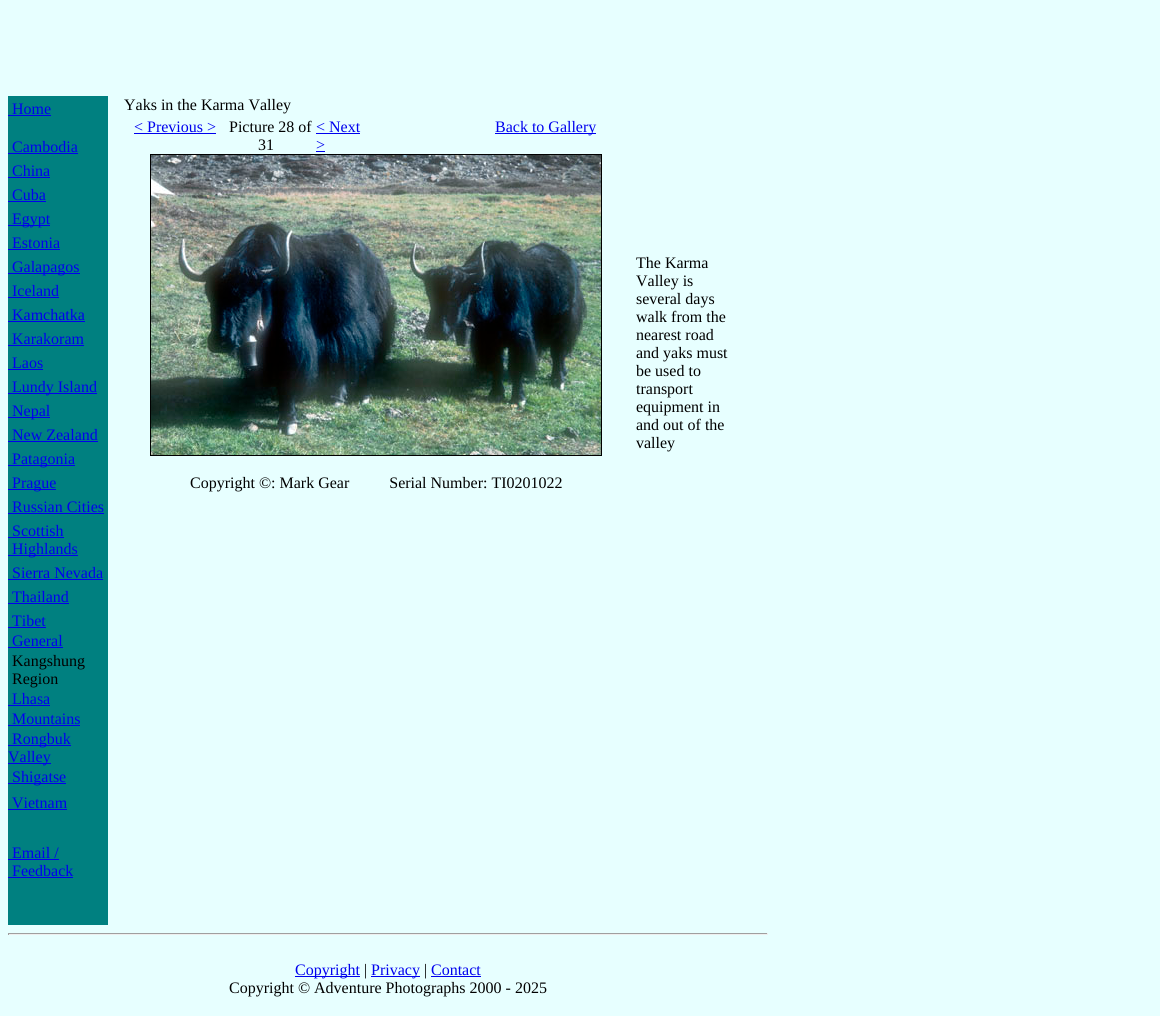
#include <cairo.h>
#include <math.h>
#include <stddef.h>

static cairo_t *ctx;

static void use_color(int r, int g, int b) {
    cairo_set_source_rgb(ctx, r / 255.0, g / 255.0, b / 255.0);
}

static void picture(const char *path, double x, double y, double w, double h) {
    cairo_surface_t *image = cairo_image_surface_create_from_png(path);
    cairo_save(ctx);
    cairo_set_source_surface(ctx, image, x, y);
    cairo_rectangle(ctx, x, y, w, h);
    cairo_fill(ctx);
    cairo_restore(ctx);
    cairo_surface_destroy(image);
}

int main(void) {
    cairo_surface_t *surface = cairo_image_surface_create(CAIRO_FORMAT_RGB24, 1160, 1016);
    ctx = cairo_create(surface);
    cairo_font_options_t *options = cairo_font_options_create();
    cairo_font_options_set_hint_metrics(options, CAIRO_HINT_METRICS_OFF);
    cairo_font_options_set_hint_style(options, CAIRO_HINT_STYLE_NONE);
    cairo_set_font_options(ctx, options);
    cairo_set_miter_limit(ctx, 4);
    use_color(231, 255, 255);
    cairo_paint(ctx);
    use_color(0, 128, 128);
    cairo_rectangle(ctx, 8, 96, 100, 829);
    cairo_fill(ctx);
    cairo_select_font_face(ctx, "Liberation Serif", CAIRO_FONT_SLANT_NORMAL, CAIRO_FONT_WEIGHT_NORMAL);
    cairo_set_font_size(ctx, 16);
    use_color(0, 0, 238);
    cairo_move_to(ctx, 12, 114);
    cairo_show_text(ctx, "Home");
    cairo_rectangle(ctx, 8, 115, 43, 1);
    cairo_fill(ctx);
    cairo_move_to(ctx, 12, 152);
    cairo_show_text(ctx, "Cambodia");
    cairo_rectangle(ctx, 8, 153, 70, 1);
    cairo_fill(ctx);
    cairo_move_to(ctx, 12, 176);
    cairo_show_text(ctx, "China");
    cairo_rectangle(ctx, 8, 177, 42, 1);
    cairo_fill(ctx);
    cairo_move_to(ctx, 12, 200);
    cairo_show_text(ctx, "Cuba");
    cairo_rectangle(ctx, 8, 201, 38, 1);
    cairo_fill(ctx);
    cairo_rectangle(ctx, 8, 225, 42, 1);
    cairo_fill(ctx);
    cairo_move_to(ctx, 12, 224);
    cairo_show_text(ctx, "Egypt");
    cairo_move_to(ctx, 12, 248);
    cairo_show_text(ctx, "Estonia");
    cairo_rectangle(ctx, 8, 249, 52, 1);
    cairo_fill(ctx);
    cairo_rectangle(ctx, 8, 273, 72, 1);
    cairo_fill(ctx);
    cairo_move_to(ctx, 12, 272);
    cairo_show_text(ctx, "Galapagos");
    cairo_move_to(ctx, 12, 296);
    cairo_show_text(ctx, "Iceland");
    cairo_rectangle(ctx, 8, 297, 51, 1);
    cairo_fill(ctx);
    cairo_move_to(ctx, 12, 320);
    cairo_show_text(ctx, "Kamchatka");
    cairo_rectangle(ctx, 8, 321, 77, 1);
    cairo_fill(ctx);
    cairo_move_to(ctx, 12, 344);
    cairo_show_text(ctx, "Karakoram");
    cairo_rectangle(ctx, 8, 345, 76, 1);
    cairo_fill(ctx);
    cairo_move_to(ctx, 12, 368);
    cairo_show_text(ctx, "Laos");
    cairo_rectangle(ctx, 8, 369, 35, 1);
    cairo_fill(ctx);
    cairo_rectangle(ctx, 8, 393, 89, 1);
    cairo_fill(ctx);
    cairo_move_to(ctx, 12, 392);
    cairo_show_text(ctx, "Lundy Island");
    cairo_rectangle(ctx, 8, 417, 42, 1);
    cairo_fill(ctx);
    cairo_move_to(ctx, 12, 416);
    cairo_show_text(ctx, "Nepal");
    cairo_move_to(ctx, 12, 440);
    cairo_show_text(ctx, "New Zealand");
    cairo_rectangle(ctx, 8, 441, 90, 1);
    cairo_fill(ctx);
    cairo_rectangle(ctx, 8, 465, 67, 1);
    cairo_fill(ctx);
    cairo_move_to(ctx, 12, 464);
    cairo_show_text(ctx, "Patagonia");
    cairo_rectangle(ctx, 8, 489, 48, 1);
    cairo_fill(ctx);
    cairo_move_to(ctx, 12, 488);
    cairo_show_text(ctx, "Prague");
    cairo_move_to(ctx, 12, 512);
    cairo_show_text(ctx, "Russian Cities");
    cairo_rectangle(ctx, 8, 513, 96, 1);
    cairo_fill(ctx);
    cairo_move_to(ctx, 12, 536);
    cairo_show_text(ctx, "Scottish");
    cairo_rectangle(ctx, 8, 537, 56, 1);
    cairo_fill(ctx);
    cairo_rectangle(ctx, 8, 555, 70, 1);
    cairo_fill(ctx);
    cairo_move_to(ctx, 12, 554);
    cairo_show_text(ctx, "Highlands");
    cairo_move_to(ctx, 12, 578);
    cairo_show_text(ctx, "Sierra Nevada");
    cairo_rectangle(ctx, 8, 579, 95, 1);
    cairo_fill(ctx);
    cairo_move_to(ctx, 12, 602);
    cairo_show_text(ctx, "Thailand");
    cairo_rectangle(ctx, 8, 603, 61, 1);
    cairo_fill(ctx);
    cairo_move_to(ctx, 12, 626);
    cairo_show_text(ctx, "Tibet");
    cairo_rectangle(ctx, 8, 627, 38, 1);
    cairo_fill(ctx);
    cairo_move_to(ctx, 12, 646);
    cairo_show_text(ctx, "General");
    cairo_rectangle(ctx, 8, 647, 55, 1);
    cairo_fill(ctx);
    use_color(0, 0, 0);
    cairo_move_to(ctx, 12, 666);
    cairo_show_text(ctx, "Kangshung");
    cairo_move_to(ctx, 12, 684);
    cairo_show_text(ctx, "Region");
    use_color(0, 0, 238);
    cairo_move_to(ctx, 12, 704);
    cairo_show_text(ctx, "Lhasa");
    cairo_rectangle(ctx, 8, 705, 42, 1);
    cairo_fill(ctx);
    cairo_move_to(ctx, 12, 724);
    cairo_show_text(ctx, "Mountains");
    cairo_rectangle(ctx, 8, 725, 72, 1);
    cairo_fill(ctx);
    cairo_rectangle(ctx, 8, 745, 63, 1);
    cairo_fill(ctx);
    cairo_move_to(ctx, 12, 744);
    cairo_show_text(ctx, "Rongbuk");
    cairo_rectangle(ctx, 8, 763, 43, 1);
    cairo_fill(ctx);
    cairo_move_to(ctx, 8, 762);
    cairo_show_text(ctx, "Valley");
    cairo_rectangle(ctx, 8, 783, 58, 1);
    cairo_fill(ctx);
    cairo_move_to(ctx, 12, 782);
    cairo_show_text(ctx, "Shigatse");
    cairo_move_to(ctx, 12, 808);
    cairo_show_text(ctx, "Vietnam");
    cairo_rectangle(ctx, 8, 809, 59, 1);
    cairo_fill(ctx);
    cairo_move_to(ctx, 12, 858);
    cairo_show_text(ctx, "Email /");
    cairo_rectangle(ctx, 8, 859, 51, 1);
    cairo_fill(ctx);
    cairo_move_to(ctx, 12, 876);
    cairo_show_text(ctx, "Feedback");
    cairo_rectangle(ctx, 8, 877, 65, 1);
    cairo_fill(ctx);
    use_color(0, 0, 0);
    cairo_move_to(ctx, 124, 110);
    cairo_show_text(ctx, "Yaks in the Karma Valley");
    use_color(0, 0, 238);
    cairo_move_to(ctx, 134, 132);
    cairo_show_text(ctx, "< Previous >");
    cairo_rectangle(ctx, 134, 133, 82, 1);
    cairo_fill(ctx);
    use_color(0, 0, 0);
    cairo_move_to(ctx, 229, 132);
    cairo_show_text(ctx, "Picture 28 of");
    cairo_move_to(ctx, 258, 150);
    cairo_show_text(ctx, "31");
    use_color(0, 0, 238);
    cairo_move_to(ctx, 316, 132);
    cairo_show_text(ctx, "< Next");
    cairo_rectangle(ctx, 316, 133, 44, 1);
    cairo_fill(ctx);
    cairo_move_to(ctx, 316, 150);
    cairo_show_text(ctx, ">");
    cairo_rectangle(ctx, 316, 151, 9, 1);
    cairo_fill(ctx);
    cairo_rectangle(ctx, 495, 133, 101, 1);
    cairo_fill(ctx);
    cairo_move_to(ctx, 495, 132);
    cairo_show_text(ctx, "Back to Gallery");
    use_color(0, 0, 0);
    cairo_move_to(ctx, 636, 268);
    cairo_show_text(ctx, "The Karma");
    cairo_move_to(ctx, 636, 286);
    cairo_show_text(ctx, "Valley is");
    cairo_move_to(ctx, 636, 304);
    cairo_show_text(ctx, "several days");
    cairo_move_to(ctx, 636, 322);
    cairo_show_text(ctx, "walk from the");
    cairo_move_to(ctx, 636, 340);
    cairo_show_text(ctx, "nearest road");
    cairo_move_to(ctx, 636, 358);
    cairo_show_text(ctx, "and yaks must");
    cairo_move_to(ctx, 636, 376);
    cairo_show_text(ctx, "be used to");
    cairo_move_to(ctx, 636, 394);
    cairo_show_text(ctx, "transport");
    cairo_move_to(ctx, 636, 412);
    cairo_show_text(ctx, "equipment in");
    cairo_move_to(ctx, 636, 430);
    cairo_show_text(ctx, "and out of the");
    cairo_move_to(ctx, 636, 448);
    cairo_show_text(ctx, "valley");
    cairo_rectangle(ctx, 150.5, 154.5, 451, 301);
    cairo_set_line_width(ctx, 1);
    cairo_stroke(ctx);
    picture("img1.png", 151, 155, 450, 300);
    cairo_move_to(ctx, 190, 488);
    cairo_show_text(ctx, "Copyright ©: Mark Gear          Serial Number: TI0201022");
    use_color(159, 159, 159);
    cairo_rectangle(ctx, 8, 933, 760, 1);
    cairo_fill(ctx);
    use_color(238, 238, 238);
    cairo_rectangle(ctx, 767, 933, 1, 2);
    cairo_fill(ctx);
    cairo_rectangle(ctx, 8, 934, 760, 1);
    cairo_fill(ctx);
    use_color(159, 159, 159);
    cairo_rectangle(ctx, 8, 933, 1, 2);
    cairo_fill(ctx);
    use_color(0, 0, 238);
    cairo_rectangle(ctx, 295, 976, 65, 1);
    cairo_fill(ctx);
    cairo_move_to(ctx, 295, 975);
    cairo_show_text(ctx, "Copyright");
    use_color(0, 0, 0);
    cairo_move_to(ctx, 364, 975);
    cairo_show_text(ctx, "|");
    use_color(0, 0, 238);
    cairo_rectangle(ctx, 371, 976, 49, 1);
    cairo_fill(ctx);
    cairo_move_to(ctx, 371, 975);
    cairo_show_text(ctx, "Privacy");
    use_color(0, 0, 0);
    cairo_move_to(ctx, 424, 975);
    cairo_show_text(ctx, "|");
    use_color(0, 0, 238);
    cairo_move_to(ctx, 431, 975);
    cairo_show_text(ctx, "Contact");
    cairo_rectangle(ctx, 431, 976, 50, 1);
    cairo_fill(ctx);
    use_color(0, 0, 0);
    cairo_move_to(ctx, 229, 993);
    cairo_show_text(ctx, "Copyright © Adventure Photographs 2000 - 2025");
    cairo_surface_write_to_png(surface, "result.png");
    cairo_font_options_destroy(options);
    cairo_destroy(ctx);
    cairo_surface_destroy(surface);
    return 0;
}
